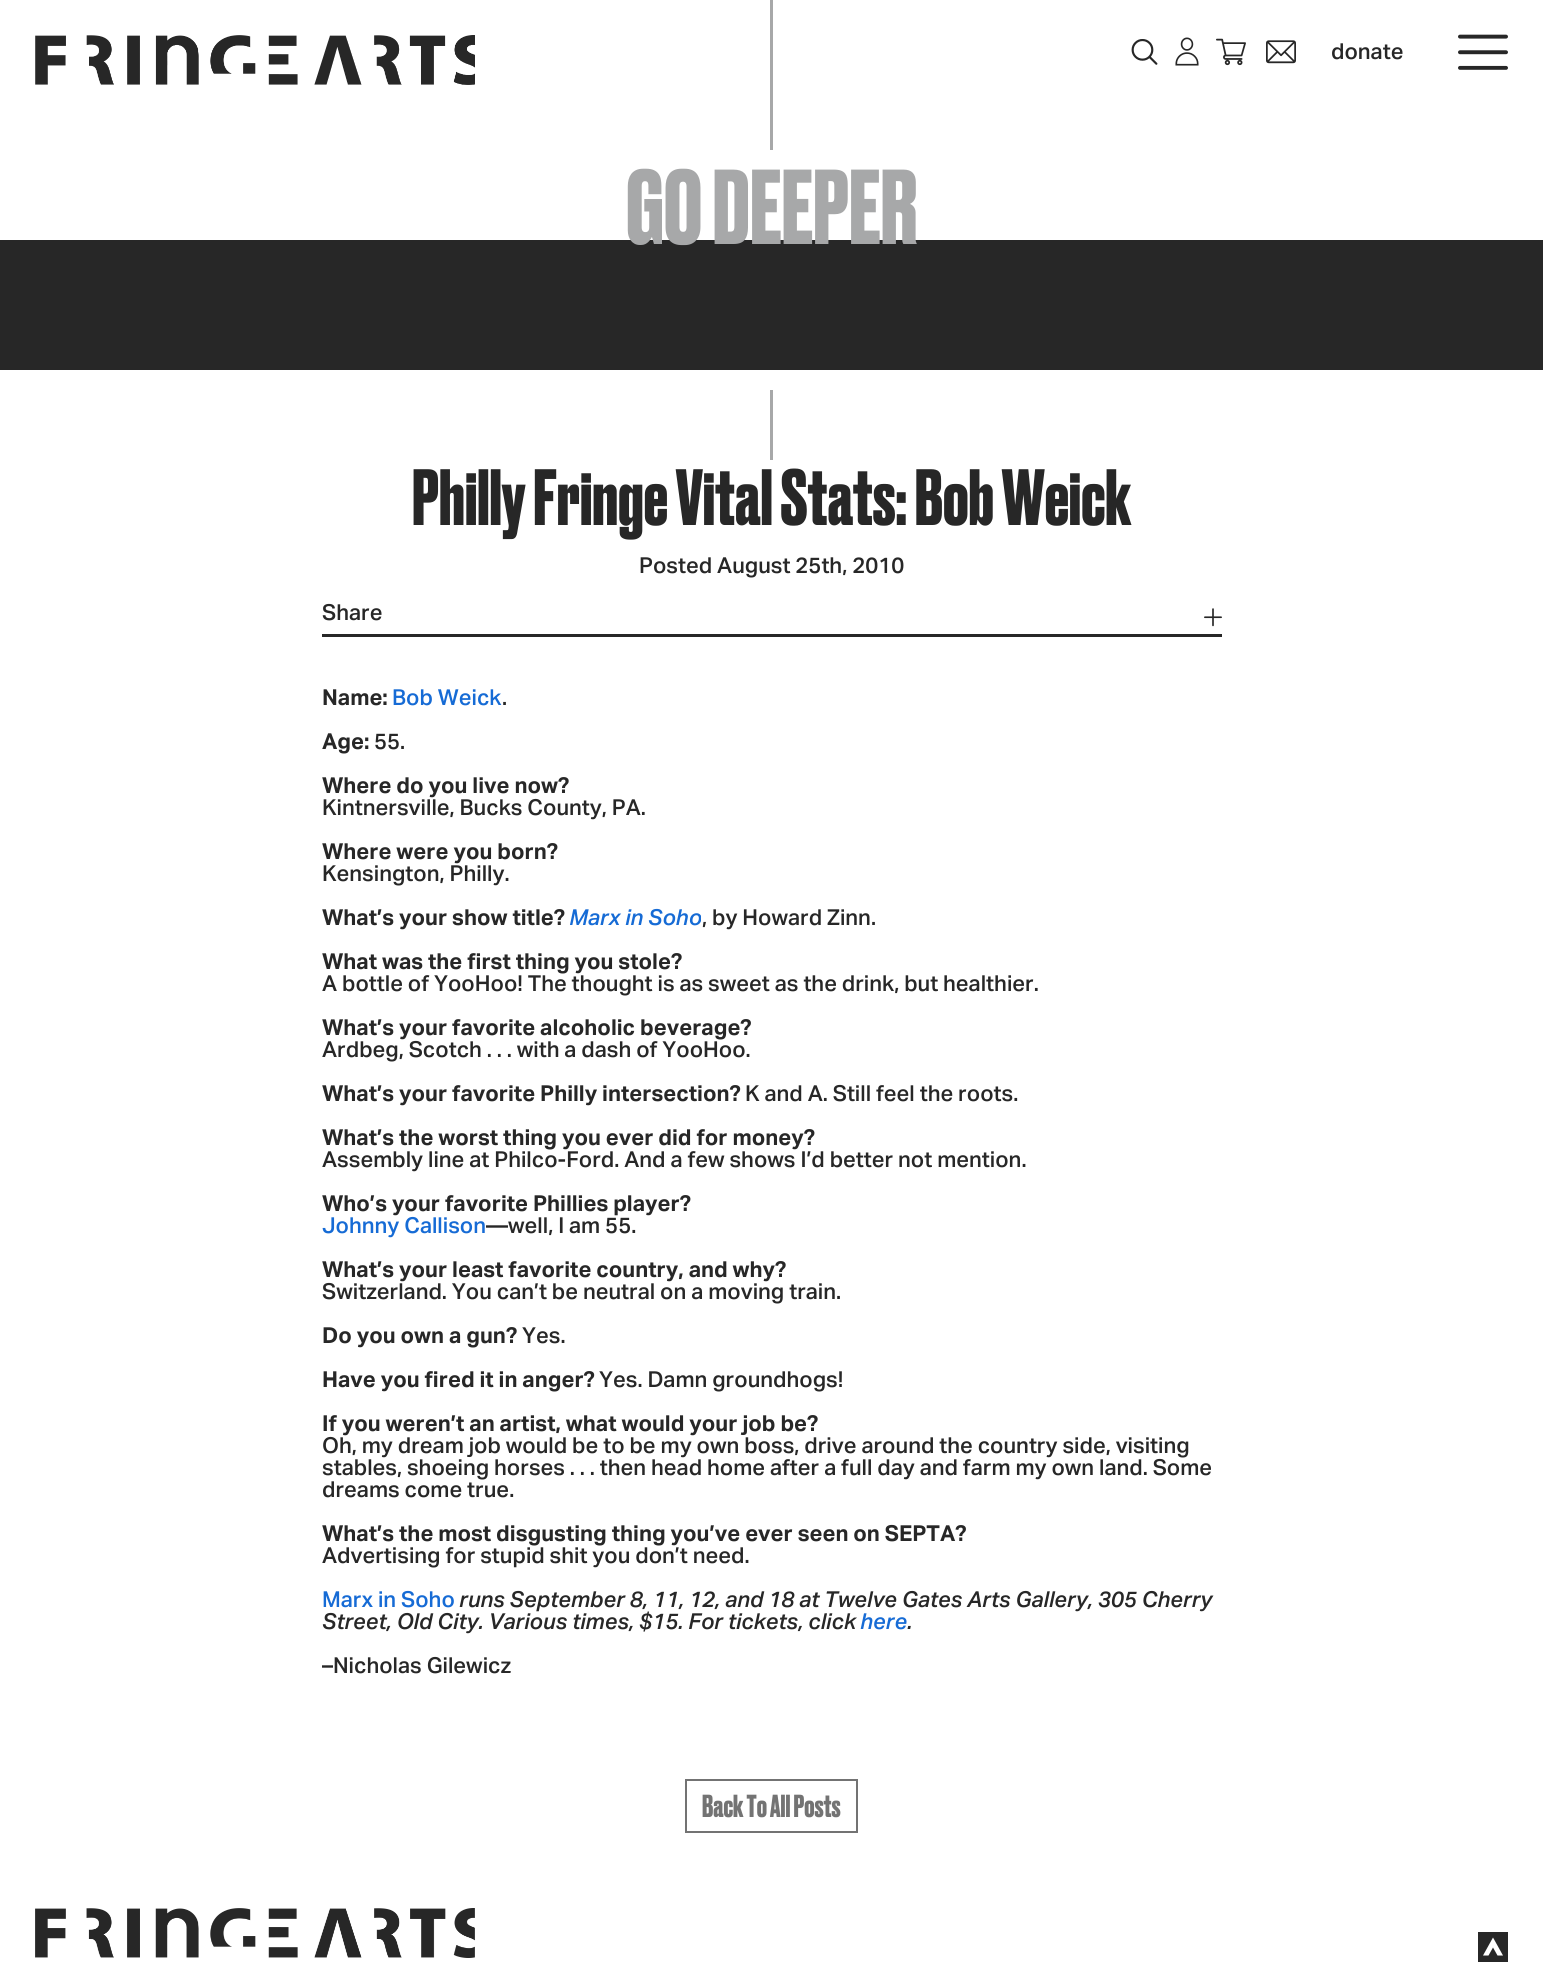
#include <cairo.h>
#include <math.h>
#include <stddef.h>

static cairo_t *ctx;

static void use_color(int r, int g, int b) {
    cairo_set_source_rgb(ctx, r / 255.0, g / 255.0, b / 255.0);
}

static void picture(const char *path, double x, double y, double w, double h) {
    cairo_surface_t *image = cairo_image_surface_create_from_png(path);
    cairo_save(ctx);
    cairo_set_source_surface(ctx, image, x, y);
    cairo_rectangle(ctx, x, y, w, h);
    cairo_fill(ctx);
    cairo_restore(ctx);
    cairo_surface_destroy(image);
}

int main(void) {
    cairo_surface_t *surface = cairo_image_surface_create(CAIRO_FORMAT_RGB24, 1543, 1982);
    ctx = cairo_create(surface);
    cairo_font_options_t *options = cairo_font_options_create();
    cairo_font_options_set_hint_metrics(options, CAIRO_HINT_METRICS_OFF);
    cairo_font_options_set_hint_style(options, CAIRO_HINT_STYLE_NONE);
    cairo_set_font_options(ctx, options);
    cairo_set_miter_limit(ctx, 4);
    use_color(255, 255, 255);
    cairo_paint(ctx);
    picture("img1.png", 35, 35, 440, 50);
    picture("img2.png", 1131, 39, 27, 26);
    picture("img3.png", 1175, 37, 24, 29);
    picture("img4.png", 1216, 38, 30, 28);
    picture("img5.png", 1266, 40, 30, 24);
    cairo_select_font_face(ctx, "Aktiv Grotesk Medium", CAIRO_FONT_SLANT_NORMAL, CAIRO_FONT_WEIGHT_NORMAL);
    cairo_set_font_size(ctx, 22);
    use_color(39, 39, 39);
    cairo_move_to(ctx, 1331, 59);
    cairo_show_text(ctx, "donate");
    picture("img6.png", 1458, 34, 50, 36);
    use_color(167, 168, 169);
    cairo_rectangle(ctx, 770, 0, 3, 150);
    cairo_fill(ctx);
    use_color(39, 39, 39);
    cairo_rectangle(ctx, 0, 240, 1543, 130);
    cairo_fill(ctx);
    cairo_select_font_face(ctx, "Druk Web", CAIRO_FONT_SLANT_NORMAL, CAIRO_FONT_WEIGHT_BOLD);
    cairo_set_font_size(ctx, 100);
    use_color(167, 168, 169);
    cairo_move_to(ctx, 626, 244);
    cairo_show_text(ctx, "GO DEEPER");
    cairo_rectangle(ctx, 770, 390, 3, 70);
    cairo_fill(ctx);
    cairo_set_font_size(ctx, 75);
    use_color(39, 39, 39);
    cairo_move_to(ctx, 412, 525);
    cairo_show_text(ctx, "Philly Fringe Vital Stats: Bob Weick");
    cairo_select_font_face(ctx, "Aktiv Grotesk Medium", CAIRO_FONT_SLANT_NORMAL, CAIRO_FONT_WEIGHT_NORMAL);
    cairo_set_font_size(ctx, 22);
    cairo_move_to(ctx, 639, 573);
    cairo_show_text(ctx, "Posted August 25th, 2010");
    cairo_rectangle(ctx, 322, 634, 900, 3);
    cairo_fill(ctx);
    cairo_move_to(ctx, 322, 620);
    cairo_show_text(ctx, "Share");
    picture("img7.png", 1204, 608, 18, 19);
    cairo_select_font_face(ctx, "Aktiv Grotesk", CAIRO_FONT_SLANT_NORMAL, CAIRO_FONT_WEIGHT_BOLD);
    cairo_move_to(ctx, 322, 705);
    cairo_show_text(ctx, "Name:");
    cairo_select_font_face(ctx, "Aktiv Grotesk Medium", CAIRO_FONT_SLANT_NORMAL, CAIRO_FONT_WEIGHT_NORMAL);
    use_color(22, 107, 213);
    cairo_move_to(ctx, 392, 705);
    cairo_show_text(ctx, "Bob Weick");
    use_color(39, 39, 39);
    cairo_move_to(ctx, 502, 705);
    cairo_show_text(ctx, ".");
    cairo_select_font_face(ctx, "Aktiv Grotesk", CAIRO_FONT_SLANT_NORMAL, CAIRO_FONT_WEIGHT_BOLD);
    cairo_move_to(ctx, 322, 749);
    cairo_show_text(ctx, "Age:");
    cairo_select_font_face(ctx, "Aktiv Grotesk Medium", CAIRO_FONT_SLANT_NORMAL, CAIRO_FONT_WEIGHT_NORMAL);
    cairo_move_to(ctx, 374, 749);
    cairo_show_text(ctx, "55.");
    cairo_select_font_face(ctx, "Aktiv Grotesk", CAIRO_FONT_SLANT_NORMAL, CAIRO_FONT_WEIGHT_BOLD);
    cairo_move_to(ctx, 322, 793);
    cairo_show_text(ctx, "Where do you live now?");
    cairo_select_font_face(ctx, "Aktiv Grotesk Medium", CAIRO_FONT_SLANT_NORMAL, CAIRO_FONT_WEIGHT_NORMAL);
    cairo_move_to(ctx, 322, 815);
    cairo_show_text(ctx, "Kintnersville, Bucks County, PA.");
    cairo_select_font_face(ctx, "Aktiv Grotesk", CAIRO_FONT_SLANT_NORMAL, CAIRO_FONT_WEIGHT_BOLD);
    cairo_move_to(ctx, 322, 859);
    cairo_show_text(ctx, "Where were you born?");
    cairo_select_font_face(ctx, "Aktiv Grotesk Medium", CAIRO_FONT_SLANT_NORMAL, CAIRO_FONT_WEIGHT_NORMAL);
    cairo_move_to(ctx, 322, 881);
    cairo_show_text(ctx, "Kensington, Philly.");
    cairo_select_font_face(ctx, "Aktiv Grotesk", CAIRO_FONT_SLANT_NORMAL, CAIRO_FONT_WEIGHT_BOLD);
    cairo_move_to(ctx, 322, 925);
    cairo_show_text(ctx, "What’s your show title?");
    cairo_select_font_face(ctx, "Aktiv Grotesk Medium", CAIRO_FONT_SLANT_ITALIC, CAIRO_FONT_WEIGHT_NORMAL);
    use_color(22, 107, 213);
    cairo_move_to(ctx, 569, 925);
    cairo_show_text(ctx, "Marx in Soho");
    cairo_select_font_face(ctx, "Aktiv Grotesk Medium", CAIRO_FONT_SLANT_NORMAL, CAIRO_FONT_WEIGHT_NORMAL);
    use_color(39, 39, 39);
    cairo_move_to(ctx, 702, 925);
    cairo_show_text(ctx, ", by Howard Zinn.");
    cairo_select_font_face(ctx, "Aktiv Grotesk", CAIRO_FONT_SLANT_NORMAL, CAIRO_FONT_WEIGHT_BOLD);
    cairo_move_to(ctx, 322, 969);
    cairo_show_text(ctx, "What was the first thing you stole?");
    cairo_select_font_face(ctx, "Aktiv Grotesk Medium", CAIRO_FONT_SLANT_NORMAL, CAIRO_FONT_WEIGHT_NORMAL);
    cairo_move_to(ctx, 322, 991);
    cairo_show_text(ctx, "A bottle of YooHoo! The thought is as sweet as the drink, but healthier.");
    cairo_select_font_face(ctx, "Aktiv Grotesk", CAIRO_FONT_SLANT_NORMAL, CAIRO_FONT_WEIGHT_BOLD);
    cairo_move_to(ctx, 322, 1035);
    cairo_show_text(ctx, "What’s your favorite alcoholic beverage?");
    cairo_select_font_face(ctx, "Aktiv Grotesk Medium", CAIRO_FONT_SLANT_NORMAL, CAIRO_FONT_WEIGHT_NORMAL);
    cairo_move_to(ctx, 322, 1057);
    cairo_show_text(ctx, "Ardbeg, Scotch . . . with a dash of YooHoo.");
    cairo_select_font_face(ctx, "Aktiv Grotesk", CAIRO_FONT_SLANT_NORMAL, CAIRO_FONT_WEIGHT_BOLD);
    cairo_move_to(ctx, 322, 1101);
    cairo_show_text(ctx, "What’s your favorite Philly intersection?");
    cairo_select_font_face(ctx, "Aktiv Grotesk Medium", CAIRO_FONT_SLANT_NORMAL, CAIRO_FONT_WEIGHT_NORMAL);
    cairo_move_to(ctx, 745, 1101);
    cairo_show_text(ctx, "K and A. Still feel the roots.");
    cairo_select_font_face(ctx, "Aktiv Grotesk", CAIRO_FONT_SLANT_NORMAL, CAIRO_FONT_WEIGHT_BOLD);
    cairo_move_to(ctx, 322, 1145);
    cairo_show_text(ctx, "What’s the worst thing you ever did for money?");
    cairo_select_font_face(ctx, "Aktiv Grotesk Medium", CAIRO_FONT_SLANT_NORMAL, CAIRO_FONT_WEIGHT_NORMAL);
    cairo_move_to(ctx, 322, 1167);
    cairo_show_text(ctx, "Assembly line at Philco-Ford. And a few shows I’d better not mention.");
    cairo_select_font_face(ctx, "Aktiv Grotesk", CAIRO_FONT_SLANT_NORMAL, CAIRO_FONT_WEIGHT_BOLD);
    cairo_move_to(ctx, 322, 1211);
    cairo_show_text(ctx, "Who’s your favorite Phillies player?");
    cairo_select_font_face(ctx, "Aktiv Grotesk Medium", CAIRO_FONT_SLANT_NORMAL, CAIRO_FONT_WEIGHT_NORMAL);
    use_color(22, 107, 213);
    cairo_move_to(ctx, 322, 1233);
    cairo_show_text(ctx, "Johnny Callison");
    use_color(39, 39, 39);
    cairo_move_to(ctx, 486, 1233);
    cairo_show_text(ctx, "—well, I am 55.");
    cairo_select_font_face(ctx, "Aktiv Grotesk", CAIRO_FONT_SLANT_NORMAL, CAIRO_FONT_WEIGHT_BOLD);
    cairo_move_to(ctx, 322, 1277);
    cairo_show_text(ctx, "What’s your least favorite country, and why?");
    cairo_select_font_face(ctx, "Aktiv Grotesk Medium", CAIRO_FONT_SLANT_NORMAL, CAIRO_FONT_WEIGHT_NORMAL);
    cairo_move_to(ctx, 322, 1299);
    cairo_show_text(ctx, "Switzerland. You can’t be neutral on a moving train.");
    cairo_select_font_face(ctx, "Aktiv Grotesk", CAIRO_FONT_SLANT_NORMAL, CAIRO_FONT_WEIGHT_BOLD);
    cairo_move_to(ctx, 322, 1343);
    cairo_show_text(ctx, "Do you own a gun?");
    cairo_select_font_face(ctx, "Aktiv Grotesk Medium", CAIRO_FONT_SLANT_NORMAL, CAIRO_FONT_WEIGHT_NORMAL);
    cairo_move_to(ctx, 522, 1343);
    cairo_show_text(ctx, "Yes.");
    cairo_select_font_face(ctx, "Aktiv Grotesk", CAIRO_FONT_SLANT_NORMAL, CAIRO_FONT_WEIGHT_BOLD);
    cairo_move_to(ctx, 322, 1387);
    cairo_show_text(ctx, "Have you fired it in anger?");
    cairo_select_font_face(ctx, "Aktiv Grotesk Medium", CAIRO_FONT_SLANT_NORMAL, CAIRO_FONT_WEIGHT_NORMAL);
    cairo_move_to(ctx, 599, 1387);
    cairo_show_text(ctx, "Yes. Damn groundhogs!");
    cairo_select_font_face(ctx, "Aktiv Grotesk", CAIRO_FONT_SLANT_NORMAL, CAIRO_FONT_WEIGHT_BOLD);
    cairo_move_to(ctx, 322, 1431);
    cairo_show_text(ctx, "If you weren’t an artist, what would your job be?");
    cairo_select_font_face(ctx, "Aktiv Grotesk Medium", CAIRO_FONT_SLANT_NORMAL, CAIRO_FONT_WEIGHT_NORMAL);
    cairo_move_to(ctx, 322, 1453);
    cairo_show_text(ctx, "Oh, my dream job would be to be my own boss, drive around the country side, visiting");
    cairo_move_to(ctx, 322, 1475);
    cairo_show_text(ctx, "stables, shoeing horses . . . then head home after a full day and farm my own land. Some");
    cairo_move_to(ctx, 322, 1497);
    cairo_show_text(ctx, "dreams come true.");
    cairo_select_font_face(ctx, "Aktiv Grotesk", CAIRO_FONT_SLANT_NORMAL, CAIRO_FONT_WEIGHT_BOLD);
    cairo_move_to(ctx, 322, 1541);
    cairo_show_text(ctx, "What’s the most disgusting thing you’ve ever seen on SEPTA?");
    cairo_select_font_face(ctx, "Aktiv Grotesk Medium", CAIRO_FONT_SLANT_NORMAL, CAIRO_FONT_WEIGHT_NORMAL);
    cairo_move_to(ctx, 322, 1563);
    cairo_show_text(ctx, "Advertising for stupid shit you don’t need.");
    use_color(22, 107, 213);
    cairo_move_to(ctx, 322, 1607);
    cairo_show_text(ctx, "Marx in Soho");
    cairo_select_font_face(ctx, "Aktiv Grotesk Medium", CAIRO_FONT_SLANT_ITALIC, CAIRO_FONT_WEIGHT_NORMAL);
    use_color(39, 39, 39);
    cairo_move_to(ctx, 459, 1607);
    cairo_show_text(ctx, "runs September 8, 11, 12, and 18 at Twelve Gates Arts Gallery, 305 Cherry");
    cairo_move_to(ctx, 322, 1629);
    cairo_show_text(ctx, "Street, Old City. Various times, $15. For tickets, click");
    use_color(22, 107, 213);
    cairo_move_to(ctx, 860, 1629);
    cairo_show_text(ctx, "here");
    use_color(39, 39, 39);
    cairo_move_to(ctx, 907, 1629);
    cairo_show_text(ctx, ".");
    cairo_select_font_face(ctx, "Aktiv Grotesk Medium", CAIRO_FONT_SLANT_NORMAL, CAIRO_FONT_WEIGHT_NORMAL);
    cairo_move_to(ctx, 322, 1673);
    cairo_show_text(ctx, "–Nicholas Gilewicz");
    cairo_rectangle(ctx, 686, 1780, 171, 52);
    use_color(115, 115, 115);
    cairo_stroke(ctx);
    cairo_select_font_face(ctx, "Druk Web", CAIRO_FONT_SLANT_NORMAL, CAIRO_FONT_WEIGHT_BOLD);
    cairo_set_font_size(ctx, 30);
    cairo_move_to(ctx, 702, 1817);
    cairo_show_text(ctx, "Back To All Posts");
    picture("img8.png", 35, 1908, 440, 50);
    use_color(39, 39, 39);
    cairo_rectangle(ctx, 1478, 1932, 30, 30);
    cairo_fill(ctx);
    use_color(255, 255, 255);
    cairo_new_path(ctx);
    cairo_move_to(ctx, 1493, 1937.5);
    cairo_line_to(ctx, 1503, 1955.5);
    cairo_line_to(ctx, 1497.5, 1955.5);
    cairo_line_to(ctx, 1493, 1947.5);
    cairo_line_to(ctx, 1488.5, 1955.5);
    cairo_line_to(ctx, 1483, 1955.5);
    cairo_close_path(ctx);
    cairo_fill(ctx);
    cairo_surface_write_to_png(surface, "result.png");
    cairo_font_options_destroy(options);
    cairo_destroy(ctx);
    cairo_surface_destroy(surface);
    return 0;
}
